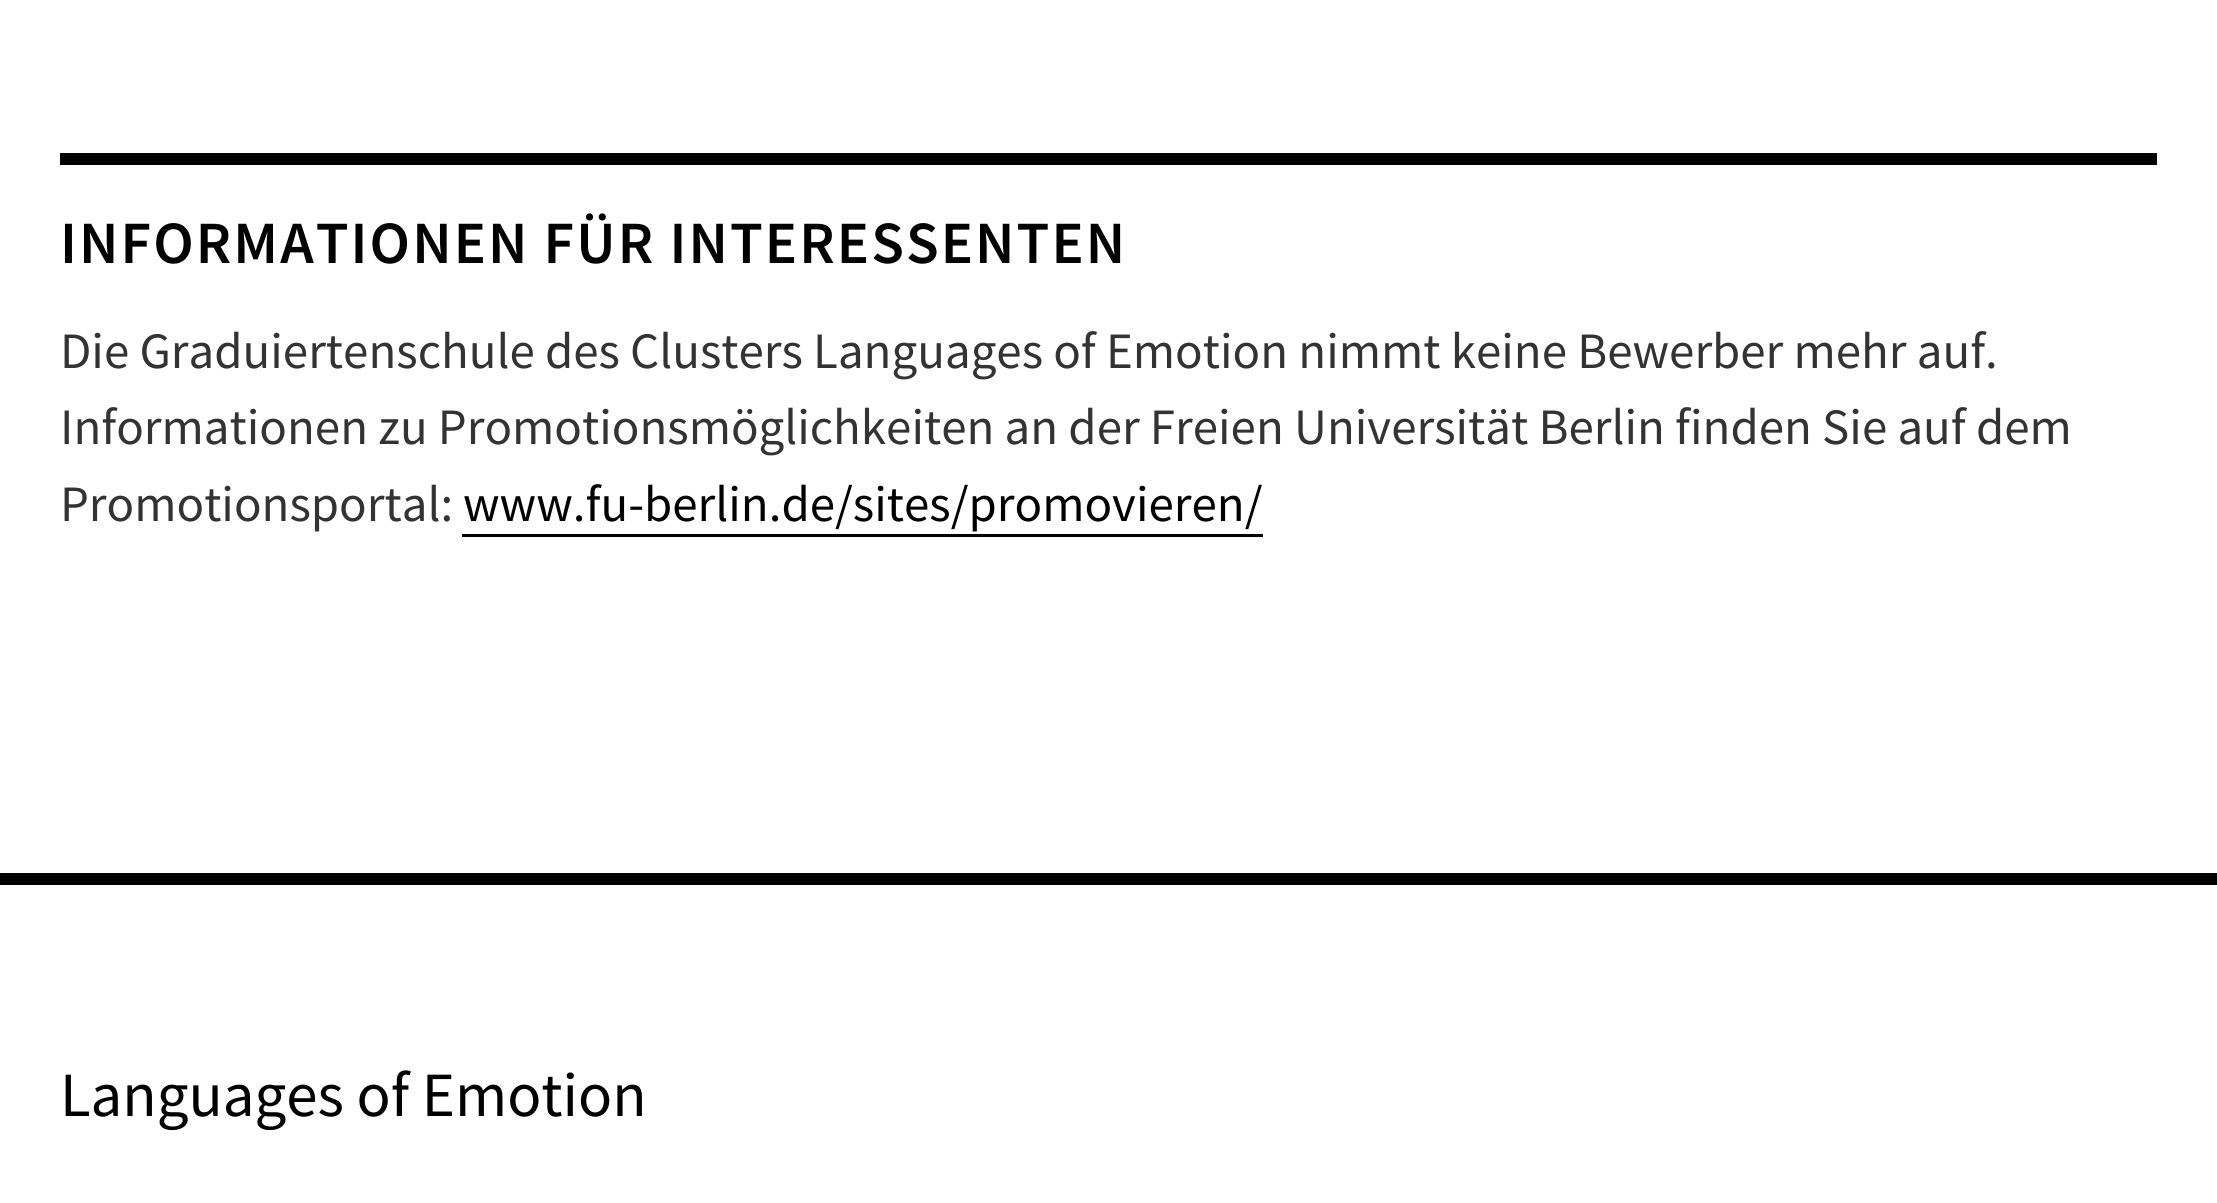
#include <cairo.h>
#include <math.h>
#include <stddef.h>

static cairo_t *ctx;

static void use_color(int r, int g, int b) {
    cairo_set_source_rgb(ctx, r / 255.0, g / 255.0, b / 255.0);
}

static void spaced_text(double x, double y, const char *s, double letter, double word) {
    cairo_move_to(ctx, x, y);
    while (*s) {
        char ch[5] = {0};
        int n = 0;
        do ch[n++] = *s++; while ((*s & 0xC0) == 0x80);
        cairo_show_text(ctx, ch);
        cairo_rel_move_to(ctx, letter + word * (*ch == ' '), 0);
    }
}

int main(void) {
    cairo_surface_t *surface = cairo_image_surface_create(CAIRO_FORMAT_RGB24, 2217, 1203);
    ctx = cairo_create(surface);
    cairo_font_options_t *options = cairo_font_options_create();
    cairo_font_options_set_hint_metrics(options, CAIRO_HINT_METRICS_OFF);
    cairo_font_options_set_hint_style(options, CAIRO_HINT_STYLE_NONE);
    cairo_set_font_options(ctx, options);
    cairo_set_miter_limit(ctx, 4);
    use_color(255, 255, 255);
    cairo_paint(ctx);
    use_color(0, 0, 0);
    cairo_rectangle(ctx, 60, 153, 2097, 12);
    cairo_fill(ctx);
    cairo_select_font_face(ctx, "Source Sans Pro SemiBold", CAIRO_FONT_SLANT_NORMAL, CAIRO_FONT_WEIGHT_NORMAL);
    cairo_set_font_size(ctx, 60);
    spaced_text(60, 263, "INFORMATIONEN FÜR INTERESSENTEN", 2.1, 0);
    cairo_select_font_face(ctx, "Source Sans Pro", CAIRO_FONT_SLANT_NORMAL, CAIRO_FONT_WEIGHT_NORMAL);
    cairo_set_font_size(ctx, 51);
    use_color(51, 51, 51);
    cairo_move_to(ctx, 60, 368);
    cairo_show_text(ctx, "Die Graduiertenschule des Clusters Languages of Emotion nimmt keine Bewerber mehr auf.");
    cairo_move_to(ctx, 60, 444);
    cairo_show_text(ctx, "Informationen zu Promotionsmöglichkeiten an der Freien Universität Berlin finden Sie auf dem");
    cairo_move_to(ctx, 60, 521);
    cairo_show_text(ctx, "Promotionsportal:");
    use_color(0, 0, 0);
    cairo_move_to(ctx, 463, 521);
    cairo_show_text(ctx, "www.fu-berlin.de/sites/promovieren/");
    cairo_rectangle(ctx, 462, 534, 801, 3);
    cairo_fill(ctx);
    cairo_rectangle(ctx, 0, 873, 2217, 12);
    cairo_fill(ctx);
    cairo_set_font_size(ctx, 63);
    cairo_move_to(ctx, 60, 1116);
    cairo_show_text(ctx, "Languages of Emotion");
    cairo_surface_write_to_png(surface, "result.png");
    cairo_font_options_destroy(options);
    cairo_destroy(ctx);
    cairo_surface_destroy(surface);
    return 0;
}
